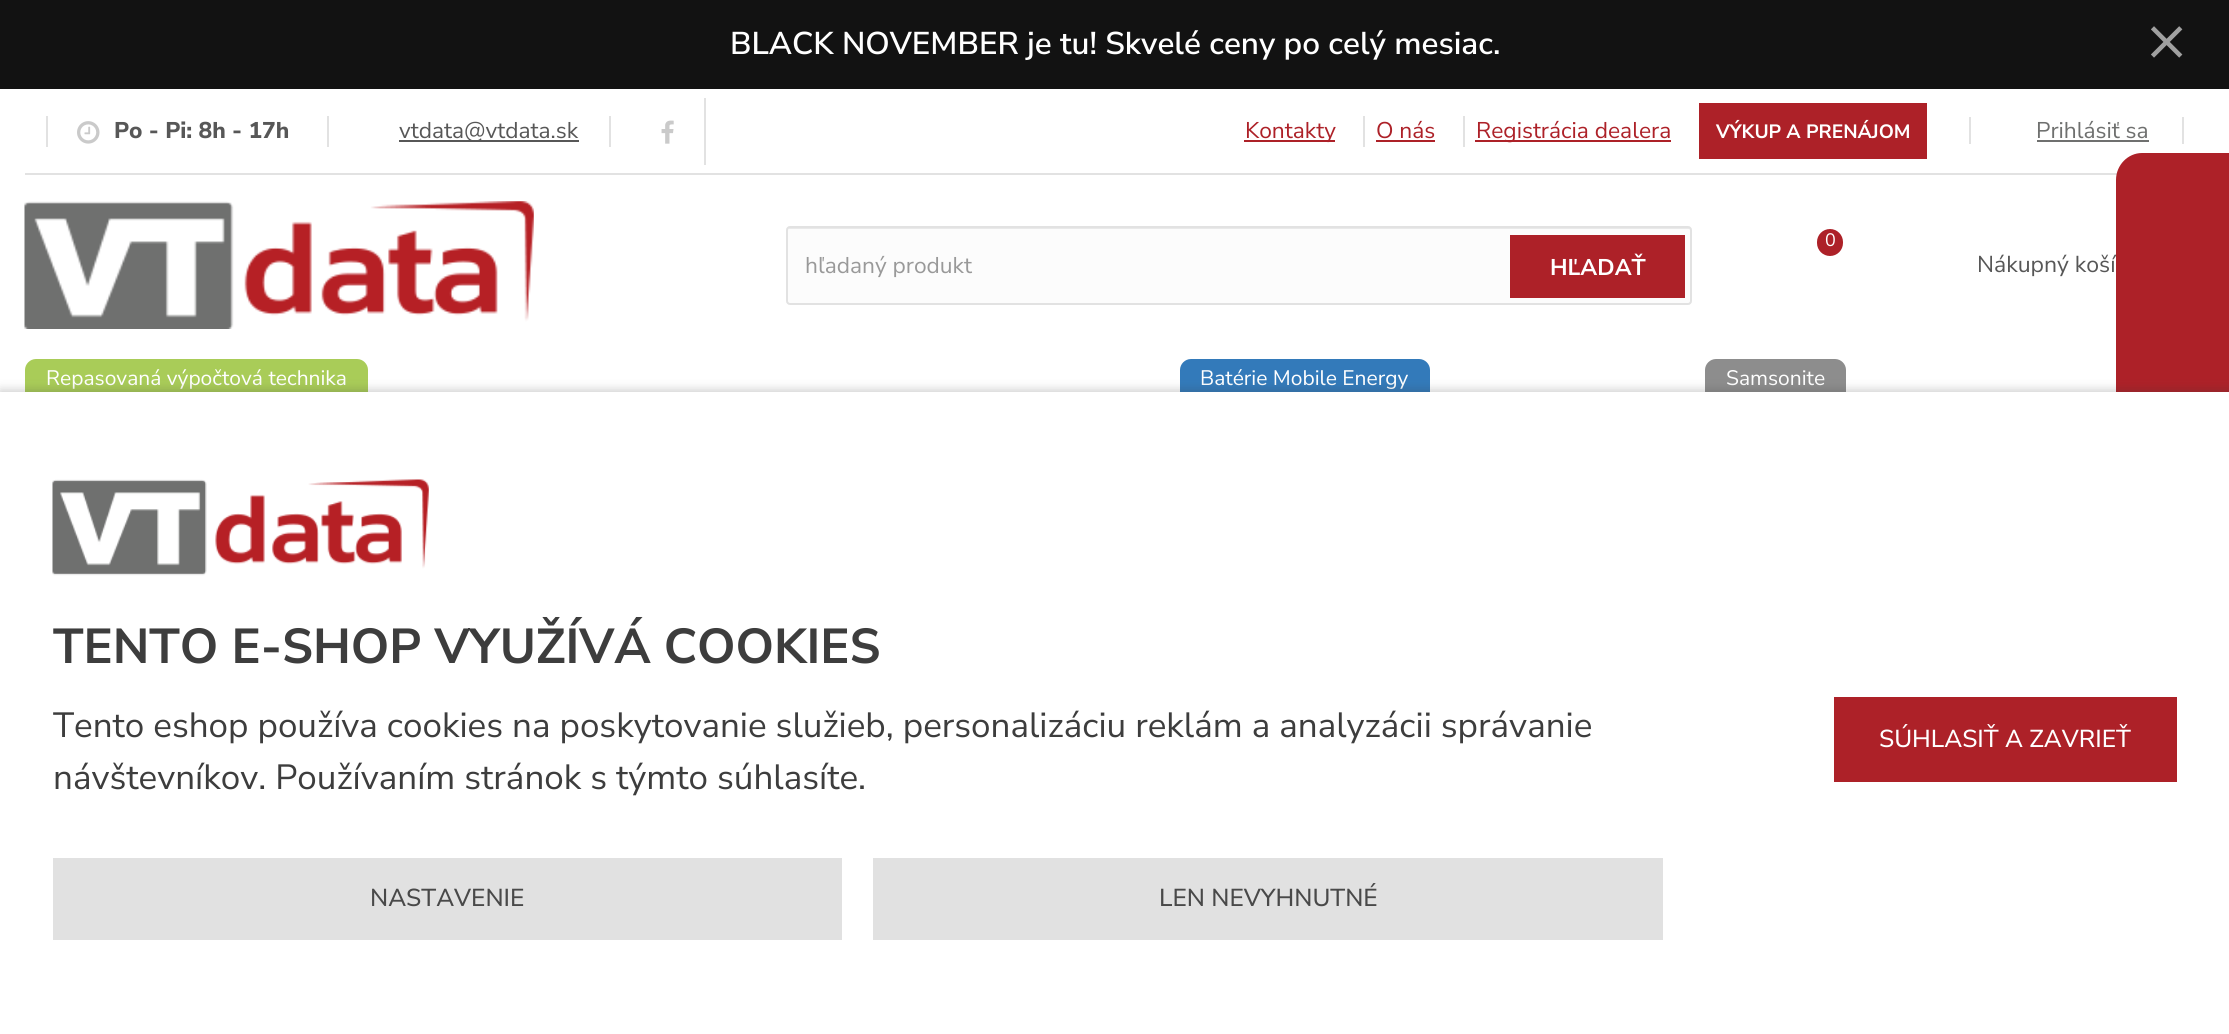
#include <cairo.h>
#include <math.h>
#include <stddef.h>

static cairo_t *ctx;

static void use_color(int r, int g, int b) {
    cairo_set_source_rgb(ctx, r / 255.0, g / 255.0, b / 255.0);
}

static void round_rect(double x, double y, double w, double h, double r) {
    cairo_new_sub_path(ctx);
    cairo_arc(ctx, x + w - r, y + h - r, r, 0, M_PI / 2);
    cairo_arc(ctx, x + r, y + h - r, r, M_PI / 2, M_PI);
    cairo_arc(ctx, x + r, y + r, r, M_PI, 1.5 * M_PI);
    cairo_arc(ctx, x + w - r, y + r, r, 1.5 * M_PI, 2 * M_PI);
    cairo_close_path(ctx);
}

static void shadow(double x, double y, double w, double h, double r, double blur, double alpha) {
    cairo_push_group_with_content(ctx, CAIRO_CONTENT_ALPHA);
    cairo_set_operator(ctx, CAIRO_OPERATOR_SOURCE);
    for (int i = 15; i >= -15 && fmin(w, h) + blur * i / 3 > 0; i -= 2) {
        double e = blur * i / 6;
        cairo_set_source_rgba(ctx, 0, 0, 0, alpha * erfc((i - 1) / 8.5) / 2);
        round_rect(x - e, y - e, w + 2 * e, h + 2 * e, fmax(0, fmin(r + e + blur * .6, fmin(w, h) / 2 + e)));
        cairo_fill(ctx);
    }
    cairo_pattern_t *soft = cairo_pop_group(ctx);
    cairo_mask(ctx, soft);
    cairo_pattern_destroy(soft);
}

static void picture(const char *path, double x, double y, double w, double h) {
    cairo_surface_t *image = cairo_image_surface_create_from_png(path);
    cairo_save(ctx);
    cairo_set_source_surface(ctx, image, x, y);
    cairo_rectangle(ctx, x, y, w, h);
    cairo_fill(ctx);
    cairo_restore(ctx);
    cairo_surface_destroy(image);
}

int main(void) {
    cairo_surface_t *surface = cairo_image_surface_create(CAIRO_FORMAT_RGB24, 2229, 1034);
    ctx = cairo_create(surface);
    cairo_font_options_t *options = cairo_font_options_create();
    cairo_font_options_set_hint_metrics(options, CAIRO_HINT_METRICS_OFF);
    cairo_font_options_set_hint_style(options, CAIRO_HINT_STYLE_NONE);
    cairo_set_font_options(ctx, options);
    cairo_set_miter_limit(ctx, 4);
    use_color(255, 255, 255);
    cairo_paint(ctx);
    use_color(18, 18, 18);
    cairo_rectangle(ctx, 0, 0, 2229, 89);
    cairo_fill(ctx);
    cairo_select_font_face(ctx, "Nunito Sans SemiBold", CAIRO_FONT_SLANT_NORMAL, CAIRO_FONT_WEIGHT_NORMAL);
    cairo_set_font_size(ctx, 31.5);
    use_color(255, 255, 255);
    cairo_move_to(ctx, 730, 54);
    cairo_show_text(ctx, "BLACK NOVEMBER je tu! Skvelé ceny po celý mesiac.");
    picture("img1.png", 2151, 26, 32, 32);
    use_color(226, 226, 226);
    cairo_rectangle(ctx, 25, 173, 2092, 2);
    cairo_fill(ctx);
    cairo_rectangle(ctx, 46, 116, 2, 31);
    cairo_fill(ctx);
    picture("img2.png", 77, 121, 23, 23);
    cairo_select_font_face(ctx, "Nunito Sans ExtraBold", CAIRO_FONT_SLANT_NORMAL, CAIRO_FONT_WEIGHT_NORMAL);
    cairo_set_font_size(ctx, 22.75);
    use_color(87, 87, 87);
    cairo_move_to(ctx, 114, 138);
    cairo_show_text(ctx, "Po - Pi: 8h - 17h");
    use_color(226, 226, 226);
    cairo_rectangle(ctx, 327, 116, 2, 31);
    cairo_fill(ctx);
    use_color(87, 87, 87);
    cairo_rectangle(ctx, 399, 140, 180, 2);
    cairo_fill(ctx);
    cairo_select_font_face(ctx, "Nunito Sans", CAIRO_FONT_SLANT_NORMAL, CAIRO_FONT_WEIGHT_NORMAL);
    cairo_move_to(ctx, 399, 138);
    cairo_show_text(ctx, "vtdata@vtdata.sk");
    use_color(226, 226, 226);
    cairo_rectangle(ctx, 609, 116, 2, 31);
    cairo_fill(ctx);
    cairo_rectangle(ctx, 704, 98, 2, 67);
    cairo_fill(ctx);
    picture("img3.png", 661, 120, 13, 24);
    use_color(173, 33, 40);
    cairo_rectangle(ctx, 1244, 140, 91, 2);
    cairo_fill(ctx);
    cairo_move_to(ctx, 1245, 138);
    cairo_show_text(ctx, "Kontakty");
    use_color(226, 226, 226);
    cairo_rectangle(ctx, 1363, 116, 2, 31);
    cairo_fill(ctx);
    use_color(173, 33, 40);
    cairo_move_to(ctx, 1376, 138);
    cairo_show_text(ctx, "O nás");
    cairo_rectangle(ctx, 1376, 140, 59, 2);
    cairo_fill(ctx);
    use_color(226, 226, 226);
    cairo_rectangle(ctx, 1463, 116, 2, 31);
    cairo_fill(ctx);
    use_color(173, 33, 40);
    cairo_rectangle(ctx, 1475, 140, 196, 2);
    cairo_fill(ctx);
    cairo_move_to(ctx, 1476, 138);
    cairo_show_text(ctx, "Registrácia dealera");
    cairo_rectangle(ctx, 1699, 103, 228, 56);
    cairo_fill(ctx);
    cairo_select_font_face(ctx, "Nunito Sans", CAIRO_FONT_SLANT_NORMAL, CAIRO_FONT_WEIGHT_BOLD);
    cairo_set_font_size(ctx, 19.25);
    use_color(255, 255, 255);
    cairo_move_to(ctx, 1716, 138);
    cairo_show_text(ctx, "VÝKUP A PRENÁJOM");
    use_color(226, 226, 226);
    cairo_rectangle(ctx, 1969, 117, 2, 27);
    cairo_fill(ctx);
    cairo_select_font_face(ctx, "Nunito Sans", CAIRO_FONT_SLANT_NORMAL, CAIRO_FONT_WEIGHT_NORMAL);
    cairo_set_font_size(ctx, 22.75);
    use_color(111, 112, 111);
    cairo_move_to(ctx, 2036, 138);
    cairo_show_text(ctx, "Prihlásiť sa");
    cairo_rectangle(ctx, 2037, 140, 112, 2);
    cairo_fill(ctx);
    use_color(226, 226, 226);
    cairo_rectangle(ctx, 2182, 117, 2, 27);
    cairo_fill(ctx);
    picture("img4.png", 24, 201, 510, 128);
    use_color(173, 33, 40);
    round_rect(1817, 229, 26, 27, 13);
    cairo_fill(ctx);
    cairo_set_font_size(ctx, 18);
    use_color(255, 255, 255);
    cairo_move_to(ctx, 1825, 246);
    cairo_show_text(ctx, "0");
    use_color(252, 252, 252);
    round_rect(786, 226, 906, 79, 4);
    cairo_fill(ctx);
    use_color(233, 233, 233);
    cairo_new_path(ctx);
    cairo_move_to(ctx, 789, 229);
    cairo_line_to(ctx, 1689, 229);
    cairo_curve_to(ctx, 1690, 229, 1690, 230, 1690, 231);
    cairo_line_to(ctx, 1690, 303);
    cairo_line_to(ctx, 1691, 301);
    cairo_line_to(ctx, 1691, 230);
    cairo_curve_to(ctx, 1691, 229, 1690, 228, 1689, 228);
    cairo_line_to(ctx, 790, 228);
    cairo_curve_to(ctx, 788, 228, 788, 230, 788, 231);
    cairo_curve_to(ctx, 788, 230, 788, 229, 789, 229);
    cairo_close_path(ctx);
    cairo_fill(ctx);
    round_rect(787, 227, 904, 77, 3);
    use_color(226, 226, 226);
    cairo_stroke(ctx);
    cairo_set_font_size(ctx, 22.75);
    use_color(153, 153, 153);
    cairo_move_to(ctx, 805, 273);
    cairo_show_text(ctx, "hľadaný produkt");
    use_color(173, 33, 40);
    cairo_rectangle(ctx, 1510, 235, 175, 63);
    cairo_fill(ctx);
    cairo_select_font_face(ctx, "Nunito Sans", CAIRO_FONT_SLANT_NORMAL, CAIRO_FONT_WEIGHT_BOLD);
    use_color(255, 255, 255);
    cairo_move_to(ctx, 1550, 275);
    cairo_show_text(ctx, "HĽADAŤ");
    cairo_select_font_face(ctx, "Nunito Sans", CAIRO_FONT_SLANT_NORMAL, CAIRO_FONT_WEIGHT_NORMAL);
    cairo_set_font_size(ctx, 23);
    use_color(87, 87, 87);
    cairo_move_to(ctx, 1977, 272);
    cairo_show_text(ctx, "Nákupný koší");
    use_color(169, 204, 88);
    cairo_new_path(ctx);
    cairo_move_to(ctx, 36, 359);
    cairo_line_to(ctx, 357, 359);
    cairo_curve_to(ctx, 363, 359, 368, 364, 368, 370);
    cairo_line_to(ctx, 368, 397);
    cairo_line_to(ctx, 25, 397);
    cairo_line_to(ctx, 25, 370);
    cairo_curve_to(ctx, 25, 364, 30, 359, 36, 359);
    cairo_close_path(ctx);
    cairo_fill(ctx);
    cairo_set_font_size(ctx, 21);
    use_color(255, 255, 255);
    cairo_move_to(ctx, 46, 385);
    cairo_show_text(ctx, "Repasovaná výpočtová technika");
    use_color(51, 122, 186);
    cairo_new_path(ctx);
    cairo_move_to(ctx, 1191, 359);
    cairo_line_to(ctx, 1419, 359);
    cairo_curve_to(ctx, 1425, 359, 1430, 364, 1430, 370);
    cairo_line_to(ctx, 1430, 397);
    cairo_line_to(ctx, 1180, 397);
    cairo_line_to(ctx, 1180, 370);
    cairo_curve_to(ctx, 1180, 364, 1185, 359, 1191, 359);
    cairo_close_path(ctx);
    cairo_fill(ctx);
    use_color(255, 255, 255);
    cairo_move_to(ctx, 1200, 385);
    cairo_show_text(ctx, "Batérie Mobile Energy");
    use_color(141, 141, 141);
    cairo_new_path(ctx);
    cairo_move_to(ctx, 1716, 359);
    cairo_line_to(ctx, 1835, 359);
    cairo_curve_to(ctx, 1841, 359, 1846, 364, 1846, 370);
    cairo_line_to(ctx, 1846, 397);
    cairo_line_to(ctx, 1705, 397);
    cairo_line_to(ctx, 1705, 370);
    cairo_curve_to(ctx, 1705, 364, 1710, 359, 1716, 359);
    cairo_close_path(ctx);
    cairo_fill(ctx);
    use_color(255, 255, 255);
    cairo_move_to(ctx, 1726, 385);
    cairo_show_text(ctx, "Samsonite");
    use_color(173, 33, 40);
    cairo_new_path(ctx);
    cairo_move_to(ctx, 2116, 670);
    cairo_line_to(ctx, 2116, 180);
    cairo_curve_to(ctx, 2116, 165, 2128, 153, 2142, 153);
    cairo_line_to(ctx, 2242, 153);
    cairo_line_to(ctx, 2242, 696);
    cairo_line_to(ctx, 2142, 696);
    cairo_curve_to(ctx, 2128, 696, 2116, 684, 2116, 670);
    cairo_close_path(ctx);
    cairo_fill(ctx);
    use_color(56, 56, 56);
    shadow(0, 390, 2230, 643, 0, 5, 0.25);
    use_color(255, 255, 255);
    cairo_rectangle(ctx, 0, 392, 2229, 642);
    cairo_fill(ctx);
    picture("img5.png", 52, 479, 377, 97);
    cairo_select_font_face(ctx, "Nunito Sans", CAIRO_FONT_SLANT_NORMAL, CAIRO_FONT_WEIGHT_BOLD);
    cairo_set_font_size(ctx, 49);
    use_color(61, 61, 61);
    cairo_move_to(ctx, 53, 663);
    cairo_show_text(ctx, "TENTO E-SHOP VYUŽÍVÁ COOKIES");
    cairo_select_font_face(ctx, "Nunito Sans", CAIRO_FONT_SLANT_NORMAL, CAIRO_FONT_WEIGHT_NORMAL);
    cairo_set_font_size(ctx, 35);
    cairo_move_to(ctx, 53, 737);
    cairo_show_text(ctx, "Tento eshop používa cookies na poskytovanie služieb, personalizáciu reklám a analyzácii správanie");
    cairo_move_to(ctx, 53, 789);
    cairo_show_text(ctx, "návštevníkov. Používaním stránok s týmto súhlasíte.");
    use_color(225, 225, 225);
    cairo_rectangle(ctx, 53, 858, 789, 82);
    cairo_fill(ctx);
    cairo_select_font_face(ctx, "Nunito Sans Medium", CAIRO_FONT_SLANT_NORMAL, CAIRO_FONT_WEIGHT_NORMAL);
    cairo_set_font_size(ctx, 24.5);
    use_color(73, 73, 73);
    cairo_move_to(ctx, 370, 906);
    cairo_show_text(ctx, "NASTAVENIE");
    use_color(225, 225, 225);
    cairo_rectangle(ctx, 873, 858, 790, 82);
    cairo_fill(ctx);
    use_color(73, 73, 73);
    cairo_move_to(ctx, 1159, 906);
    cairo_show_text(ctx, "LEN NEVYHNUTNÉ");
    use_color(173, 33, 40);
    cairo_rectangle(ctx, 1834, 697, 343, 85);
    cairo_fill(ctx);
    use_color(255, 255, 255);
    cairo_move_to(ctx, 1879, 747);
    cairo_show_text(ctx, "SÚHLASIŤ A ZAVRIEŤ");
    cairo_surface_write_to_png(surface, "result.png");
    cairo_font_options_destroy(options);
    cairo_destroy(ctx);
    cairo_surface_destroy(surface);
    return 0;
}
